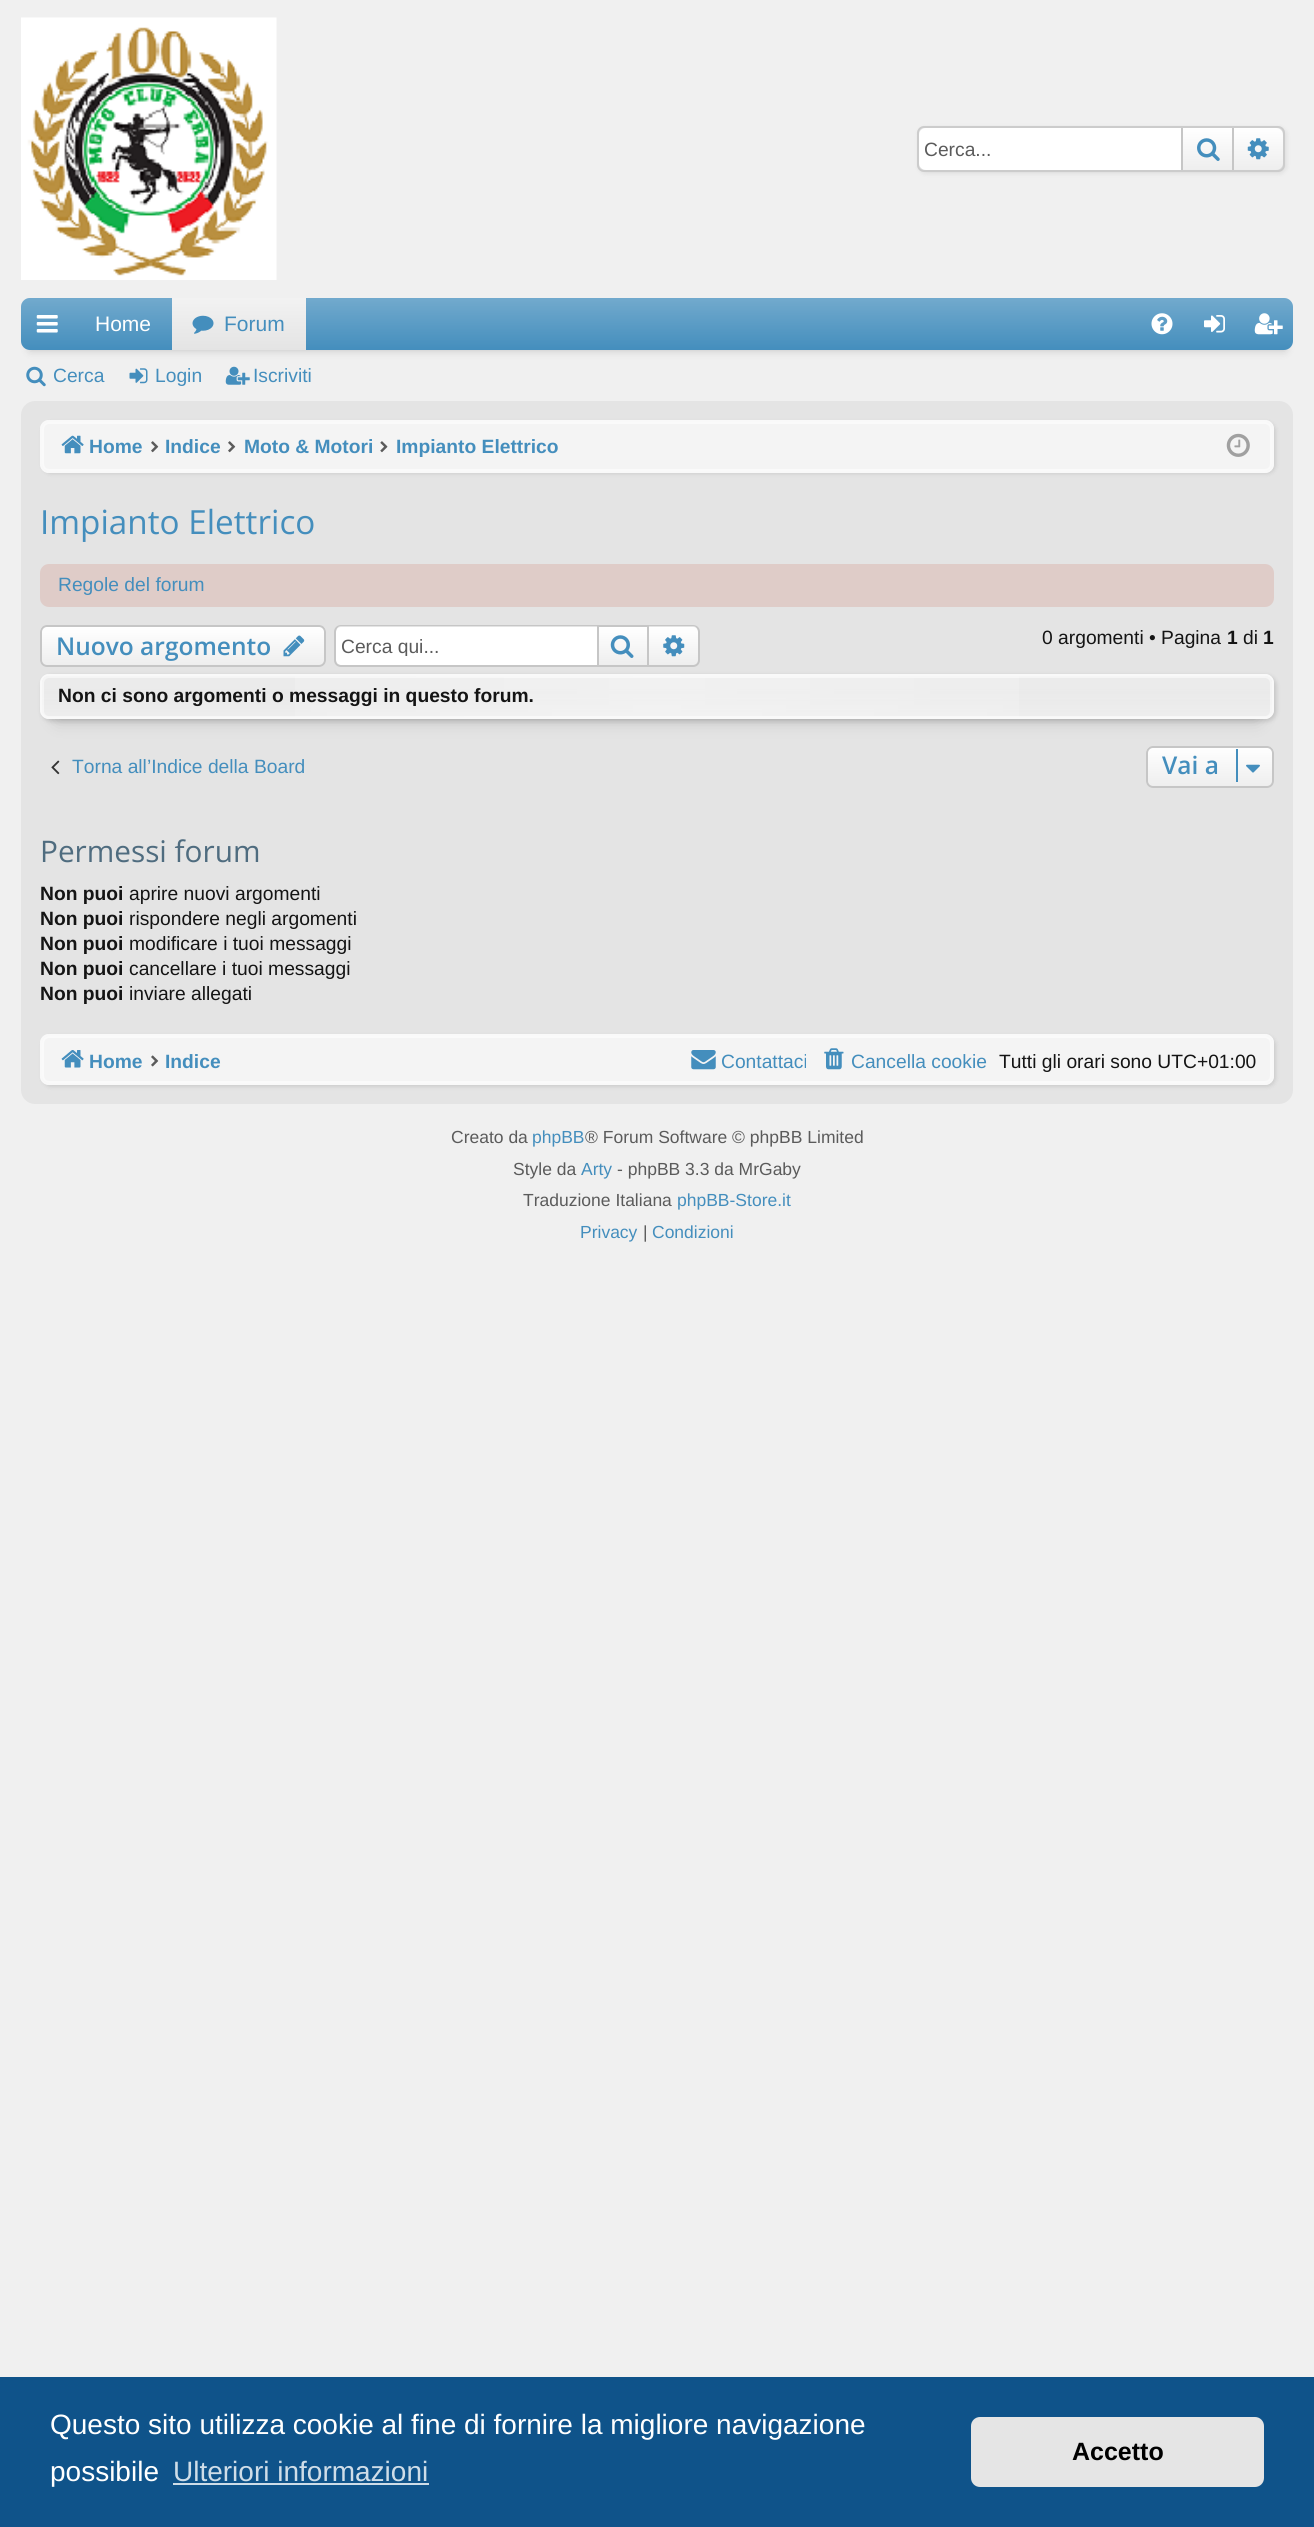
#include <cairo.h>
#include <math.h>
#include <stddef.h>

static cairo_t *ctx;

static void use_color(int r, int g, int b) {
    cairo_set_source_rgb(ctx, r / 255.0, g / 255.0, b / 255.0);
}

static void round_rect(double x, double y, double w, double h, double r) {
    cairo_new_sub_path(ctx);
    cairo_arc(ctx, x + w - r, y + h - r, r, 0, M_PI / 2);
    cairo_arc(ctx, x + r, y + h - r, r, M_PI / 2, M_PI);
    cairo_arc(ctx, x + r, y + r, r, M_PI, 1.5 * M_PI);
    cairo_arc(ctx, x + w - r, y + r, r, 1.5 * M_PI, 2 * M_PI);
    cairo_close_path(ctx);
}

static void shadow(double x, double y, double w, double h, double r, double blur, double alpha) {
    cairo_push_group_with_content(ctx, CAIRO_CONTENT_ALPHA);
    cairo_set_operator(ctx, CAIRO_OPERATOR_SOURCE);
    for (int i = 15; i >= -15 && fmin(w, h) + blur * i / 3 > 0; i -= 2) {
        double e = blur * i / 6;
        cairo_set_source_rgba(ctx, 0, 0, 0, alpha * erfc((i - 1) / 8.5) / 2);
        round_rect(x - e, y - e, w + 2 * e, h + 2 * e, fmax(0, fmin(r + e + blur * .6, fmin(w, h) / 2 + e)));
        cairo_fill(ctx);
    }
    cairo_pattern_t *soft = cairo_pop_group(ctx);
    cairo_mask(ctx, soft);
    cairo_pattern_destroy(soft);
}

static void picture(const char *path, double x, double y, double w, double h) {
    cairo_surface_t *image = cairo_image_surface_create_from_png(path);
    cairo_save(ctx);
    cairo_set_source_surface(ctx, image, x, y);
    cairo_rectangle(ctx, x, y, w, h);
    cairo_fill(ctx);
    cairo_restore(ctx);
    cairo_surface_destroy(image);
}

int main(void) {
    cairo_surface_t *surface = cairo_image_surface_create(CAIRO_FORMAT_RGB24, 1314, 2527);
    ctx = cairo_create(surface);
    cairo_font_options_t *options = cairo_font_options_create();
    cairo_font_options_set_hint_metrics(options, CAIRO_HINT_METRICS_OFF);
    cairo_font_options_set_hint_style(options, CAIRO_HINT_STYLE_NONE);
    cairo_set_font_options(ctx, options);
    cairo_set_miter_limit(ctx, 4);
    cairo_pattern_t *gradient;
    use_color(240, 240, 240);
    cairo_paint(ctx);
    picture("img1.png", 21, 17, 256, 263);
    use_color(0, 0, 0);
    shadow(919, 128, 367, 45, 7, 2.5, 0.1);
    round_rect(918, 127, 366, 44, 6);
    use_color(204, 204, 204);
    cairo_stroke(ctx);
    use_color(255, 255, 255);
    cairo_new_path(ctx);
    cairo_move_to(ctx, 926, 128);
    cairo_line_to(ctx, 1181, 128);
    cairo_line_to(ctx, 1181, 170);
    cairo_line_to(ctx, 926, 170);
    cairo_curve_to(ctx, 922, 170, 919, 167, 919, 163);
    cairo_line_to(ctx, 919, 135);
    cairo_curve_to(ctx, 919, 131, 922, 128, 926, 128);
    cairo_close_path(ctx);
    cairo_fill(ctx);
    cairo_select_font_face(ctx, "Liberation Sans", CAIRO_FONT_SLANT_NORMAL, CAIRO_FONT_WEIGHT_NORMAL);
    cairo_set_font_size(ctx, 19.25);
    use_color(91, 91, 91);
    cairo_move_to(ctx, 924, 156);
    cairo_show_text(ctx, "Cerca...");
    gradient = cairo_pattern_create_linear(1208, 128, 1208, 170);
    cairo_pattern_add_color_stop_rgba(gradient, 0, 1, 1, 1, 1);
    cairo_pattern_add_color_stop_rgba(gradient, 1, 0.933, 0.933, 0.933, 1);
    cairo_set_source(ctx, gradient);
    cairo_pattern_destroy(gradient);
    cairo_rectangle(ctx, 1183, 128, 49, 42);
    cairo_fill(ctx);
    use_color(198, 198, 198);
    cairo_rectangle(ctx, 1232, 128, 2, 42);
    cairo_fill(ctx);
    cairo_rectangle(ctx, 1181, 128, 2, 42);
    cairo_fill(ctx);
    picture("img2.png", 1197, 138, 23, 23);
    gradient = cairo_pattern_create_linear(1258, 128, 1258, 170);
    cairo_pattern_add_color_stop_rgba(gradient, 0, 1, 1, 1, 1);
    cairo_pattern_add_color_stop_rgba(gradient, 1, 0.933, 0.933, 0.933, 1);
    cairo_set_source(ctx, gradient);
    cairo_pattern_destroy(gradient);
    cairo_new_path(ctx);
    cairo_move_to(ctx, 1234, 128);
    cairo_line_to(ctx, 1276, 128);
    cairo_curve_to(ctx, 1280, 128, 1283, 131, 1283, 135);
    cairo_line_to(ctx, 1283, 163);
    cairo_curve_to(ctx, 1283, 167, 1280, 170, 1276, 170);
    cairo_line_to(ctx, 1234, 170);
    cairo_close_path(ctx);
    cairo_fill(ctx);
    picture("img3.png", 1247, 138, 22, 22);
    use_color(0, 0, 0);
    shadow(30, 315, 1255, 35, 0, 4.5, 0.2);
    use_color(68, 142, 189);
    round_rect(21, 298, 1272, 52, 9);
    cairo_fill(ctx);
    gradient = cairo_pattern_create_linear(657, 297, 657, 350);
    cairo_pattern_add_color_stop_rgba(gradient, 0, 1, 1, 1, 0.25);
    cairo_pattern_add_color_stop_rgba(gradient, 1, 1, 1, 1, 0);
    cairo_set_source(ctx, gradient);
    cairo_pattern_destroy(gradient);
    round_rect(21, 298, 1272, 52, 9);
    cairo_fill(ctx);
    picture("img4.png", 36, 315, 22, 18);
    cairo_set_font_size(ctx, 21);
    use_color(255, 255, 255);
    cairo_move_to(ctx, 95, 331);
    cairo_show_text(ctx, "Home");
    gradient = cairo_pattern_create_linear(239, 298, 239, 350);
    cairo_pattern_add_color_stop_rgba(gradient, 0, 0.949, 0.949, 0.949, 1);
    cairo_pattern_add_color_stop_rgba(gradient, 1, 0.894, 0.894, 0.894, 1);
    cairo_set_source(ctx, gradient);
    cairo_pattern_destroy(gradient);
    cairo_rectangle(ctx, 172, 298, 134, 52);
    cairo_fill(ctx);
    picture("img5.png", 192, 315, 22, 19);
    use_color(68, 142, 189);
    cairo_move_to(ctx, 224, 331);
    cairo_show_text(ctx, "Forum");
    picture("img6.png", 1151, 313, 22, 22);
    picture("img7.png", 1204, 315, 21, 18);
    picture("img8.png", 1254, 313, 29, 22);
    picture("img9.png", 26, 366, 20, 21);
    cairo_set_font_size(ctx, 19.25);
    cairo_move_to(ctx, 53, 382);
    cairo_show_text(ctx, "Cerca");
    picture("img10.png", 129, 368, 19, 16);
    cairo_move_to(ctx, 155, 382);
    cairo_show_text(ctx, "Login");
    picture("img11.png", 225, 366, 25, 19);
    cairo_move_to(ctx, 253, 382);
    cairo_show_text(ctx, "Iscriviti");
    use_color(228, 228, 228);
    round_rect(22, 402, 1270, 701, 13);
    cairo_fill_preserve(ctx);
    cairo_stroke(ctx);
    use_color(0, 0, 0);
    shadow(42, 422, 1234, 52, 9, 2, 0.1);
    use_color(244, 244, 244);
    round_rect(40, 420, 1234, 53, 9);
    cairo_fill(ctx);
    round_rect(43, 423, 1228, 47, 6);
    use_color(250, 250, 250);
    cairo_stroke(ctx);
    round_rect(41, 421, 1232, 51, 8);
    use_color(249, 249, 249);
    cairo_stroke(ctx);
    picture("img12.png", 61, 435, 23, 19);
    cairo_select_font_face(ctx, "Liberation Sans", CAIRO_FONT_SLANT_NORMAL, CAIRO_FONT_WEIGHT_BOLD);
    use_color(68, 142, 189);
    cairo_move_to(ctx, 89, 453);
    cairo_show_text(ctx, "Home");
    picture("img13.png", 151, 441, 8, 12);
    cairo_move_to(ctx, 165, 453);
    cairo_show_text(ctx, "Indice");
    picture("img13.png", 228, 441, 8, 12);
    cairo_move_to(ctx, 244, 453);
    cairo_show_text(ctx, "Moto & Motori");
    picture("img14.png", 380, 441, 8, 12);
    cairo_move_to(ctx, 396, 453);
    cairo_show_text(ctx, "Impianto Elettrico");
    picture("img15.png", 1226, 433, 24, 24);
    cairo_select_font_face(ctx, "Open Sans", CAIRO_FONT_SLANT_NORMAL, CAIRO_FONT_WEIGHT_NORMAL);
    cairo_set_font_size(ctx, 33.25);
    cairo_move_to(ctx, 40, 534);
    cairo_show_text(ctx, "Impianto Elettrico");
    use_color(223, 204, 200);
    round_rect(40, 564, 1234, 43, 9);
    cairo_fill(ctx);
    cairo_select_font_face(ctx, "Liberation Sans", CAIRO_FONT_SLANT_NORMAL, CAIRO_FONT_WEIGHT_NORMAL);
    cairo_set_font_size(ctx, 19.25);
    use_color(68, 142, 189);
    cairo_move_to(ctx, 58, 591);
    cairo_show_text(ctx, "Regole del forum");
    use_color(238, 238, 238);
    round_rect(40, 625, 286, 42, 7);
    cairo_fill(ctx);
    cairo_save(ctx);
    round_rect(40, 625, 286, 42, 7);
    cairo_clip(ctx);
    gradient = cairo_pattern_create_linear(183, 627, 183, 665);
    cairo_pattern_add_color_stop_rgba(gradient, 0, 1, 1, 1, 1);
    cairo_pattern_add_color_stop_rgba(gradient, 1, 1, 1, 1, 0);
    cairo_set_source(ctx, gradient);
    cairo_pattern_destroy(gradient);
    cairo_rectangle(ctx, 40, 627, 286, 37);
    cairo_fill(ctx);
    cairo_restore(ctx);
    round_rect(41, 626, 284, 40, 6);
    use_color(198, 198, 198);
    cairo_stroke(ctx);
    cairo_select_font_face(ctx, "Open Sans SemiBold", CAIRO_FONT_SLANT_NORMAL, CAIRO_FONT_WEIGHT_NORMAL);
    cairo_set_font_size(ctx, 24.5);
    use_color(68, 142, 189);
    cairo_move_to(ctx, 56, 655);
    cairo_show_text(ctx, "Nuovo argomento");
    picture("img16.png", 283, 635, 22, 22);
    use_color(255, 255, 255);
    cairo_new_path(ctx);
    cairo_move_to(ctx, 341, 627);
    cairo_line_to(ctx, 597, 627);
    cairo_line_to(ctx, 597, 665);
    cairo_line_to(ctx, 341, 665);
    cairo_curve_to(ctx, 338, 665, 336, 663, 336, 660);
    cairo_line_to(ctx, 336, 632);
    cairo_curve_to(ctx, 336, 629, 338, 627, 341, 627);
    cairo_close_path(ctx);
    cairo_fill(ctx);
    use_color(198, 198, 198);
    cairo_set_fill_rule(ctx, CAIRO_FILL_RULE_EVEN_ODD);
    cairo_new_path(ctx);
    cairo_move_to(ctx, 341, 625);
    cairo_line_to(ctx, 597, 625);
    cairo_line_to(ctx, 597, 667);
    cairo_line_to(ctx, 341, 667);
    cairo_curve_to(ctx, 337, 667, 334, 664, 334, 660);
    cairo_line_to(ctx, 334, 632);
    cairo_curve_to(ctx, 334, 628, 337, 625, 341, 625);
    cairo_close_path(ctx);
    cairo_move_to(ctx, 341, 626);
    cairo_line_to(ctx, 597, 626);
    cairo_line_to(ctx, 597, 665);
    cairo_line_to(ctx, 341, 665);
    cairo_curve_to(ctx, 338, 665, 336, 663, 336, 660);
    cairo_line_to(ctx, 336, 632);
    cairo_curve_to(ctx, 336, 629, 338, 626, 341, 626);
    cairo_close_path(ctx);
    cairo_fill(ctx);
    cairo_save(ctx);
    cairo_set_fill_rule(ctx, CAIRO_FILL_RULE_WINDING);
    cairo_rectangle(ctx, 341, 635, 244, 21);
    cairo_clip(ctx);
    cairo_select_font_face(ctx, "Liberation Sans", CAIRO_FONT_SLANT_NORMAL, CAIRO_FONT_WEIGHT_NORMAL);
    cairo_set_font_size(ctx, 19.25);
    use_color(91, 91, 91);
    cairo_move_to(ctx, 341, 653);
    cairo_show_text(ctx, "Cerca qui...");
    cairo_restore(ctx);
    gradient = cairo_pattern_create_linear(623, 627, 623, 665);
    cairo_pattern_add_color_stop_rgba(gradient, 0, 1, 1, 1, 1);
    cairo_pattern_add_color_stop_rgba(gradient, 1, 0.933, 0.933, 0.933, 1);
    cairo_set_source(ctx, gradient);
    cairo_pattern_destroy(gradient);
    cairo_rectangle(ctx, 599, 627, 48, 38);
    cairo_fill(ctx);
    cairo_rectangle(ctx, 598, 626, 50, 40);
    use_color(198, 198, 198);
    cairo_stroke(ctx);
    picture("img17.png", 610, 635, 24, 23);
    use_color(238, 238, 238);
    cairo_new_path(ctx);
    cairo_move_to(ctx, 649, 627);
    cairo_line_to(ctx, 693, 627);
    cairo_curve_to(ctx, 696, 627, 698, 629, 698, 632);
    cairo_line_to(ctx, 698, 660);
    cairo_curve_to(ctx, 698, 663, 696, 665, 693, 665);
    cairo_line_to(ctx, 649, 665);
    cairo_close_path(ctx);
    cairo_fill(ctx);
    gradient = cairo_pattern_create_linear(674, 627, 674, 665);
    cairo_pattern_add_color_stop_rgba(gradient, 0, 1, 1, 1, 1);
    cairo_pattern_add_color_stop_rgba(gradient, 1, 1, 1, 1, 0);
    cairo_set_source(ctx, gradient);
    cairo_pattern_destroy(gradient);
    cairo_new_path(ctx);
    cairo_move_to(ctx, 649, 627);
    cairo_line_to(ctx, 693, 627);
    cairo_curve_to(ctx, 696, 627, 698, 629, 698, 632);
    cairo_line_to(ctx, 698, 660);
    cairo_curve_to(ctx, 698, 663, 696, 665, 693, 665);
    cairo_line_to(ctx, 649, 665);
    cairo_close_path(ctx);
    cairo_fill(ctx);
    use_color(198, 198, 198);
    cairo_new_path(ctx);
    cairo_move_to(ctx, 649, 625);
    cairo_line_to(ctx, 693, 625);
    cairo_curve_to(ctx, 697, 625, 700, 628, 700, 632);
    cairo_line_to(ctx, 700, 660);
    cairo_curve_to(ctx, 700, 664, 697, 667, 693, 667);
    cairo_line_to(ctx, 649, 667);
    cairo_close_path(ctx);
    cairo_move_to(ctx, 649, 626);
    cairo_line_to(ctx, 693, 626);
    cairo_curve_to(ctx, 696, 626, 698, 629, 698, 632);
    cairo_line_to(ctx, 698, 660);
    cairo_curve_to(ctx, 698, 663, 696, 665, 693, 665);
    cairo_line_to(ctx, 649, 665);
    cairo_close_path(ctx);
    cairo_fill(ctx);
    picture("img18.png", 663, 635, 22, 22);
    cairo_select_font_face(ctx, "Liberation Sans", CAIRO_FONT_SLANT_NORMAL, CAIRO_FONT_WEIGHT_NORMAL);
    cairo_set_font_size(ctx, 19.25);
    use_color(20, 20, 20);
    cairo_move_to(ctx, 1042, 644);
    cairo_show_text(ctx, "0 argomenti • Pagina");
    cairo_select_font_face(ctx, "Liberation Sans", CAIRO_FONT_SLANT_NORMAL, CAIRO_FONT_WEIGHT_BOLD);
    cairo_move_to(ctx, 1227, 644);
    cairo_show_text(ctx, "1");
    cairo_select_font_face(ctx, "Liberation Sans", CAIRO_FONT_SLANT_NORMAL, CAIRO_FONT_WEIGHT_NORMAL);
    cairo_move_to(ctx, 1243, 644);
    cairo_show_text(ctx, "di");
    cairo_select_font_face(ctx, "Liberation Sans", CAIRO_FONT_SLANT_NORMAL, CAIRO_FONT_WEIGHT_BOLD);
    cairo_move_to(ctx, 1263, 644);
    cairo_show_text(ctx, "1");
    use_color(0, 0, 0);
    shadow(58, 709, 1199, 10, 0, 9, 0.2);
    shadow(42, 676, 1234, 45, 9, 2.5, 0.15);
    use_color(244, 244, 244);
    round_rect(40, 674, 1234, 45, 9);
    cairo_fill(ctx);
    cairo_save(ctx);
    cairo_set_fill_rule(ctx, CAIRO_FILL_RULE_WINDING);
    round_rect(40, 674, 1234, 45, 9);
    cairo_clip(ctx);
    gradient = cairo_pattern_create_linear(657, 675, 657, 763);
    cairo_pattern_add_color_stop_rgba(gradient, 0, 0.8, 0.8, 0.8, 0.2);
    cairo_pattern_add_color_stop_rgba(gradient, 0.2, 0.8, 0.8, 0.8, 0.25);
    cairo_pattern_add_color_stop_rgba(gradient, 1, 0.8, 0.8, 0.8, 0);
    cairo_set_source(ctx, gradient);
    cairo_pattern_destroy(gradient);
    cairo_rectangle(ctx, 40, 676, 1234, 42);
    cairo_fill(ctx);
    cairo_restore(ctx);
    gradient = cairo_pattern_create_linear(42, 697, 1272, 697);
    cairo_pattern_add_color_stop_rgba(gradient, 0, 1, 1, 1, 0);
    cairo_pattern_add_color_stop_rgba(gradient, 0.5, 1, 1, 1, 0.3);
    cairo_pattern_add_color_stop_rgba(gradient, 1, 1, 1, 1, 0);
    cairo_set_source(ctx, gradient);
    cairo_pattern_destroy(gradient);
    cairo_rectangle(ctx, 295, 676, 724, 41);
    cairo_fill(ctx);
    round_rect(43, 677, 1228, 40, 6);
    cairo_set_source_rgba(ctx, 1, 1, 1, 0.5);
    cairo_stroke(ctx);
    round_rect(41, 675, 1232, 43, 8);
    use_color(249, 249, 249);
    cairo_stroke(ctx);
    use_color(20, 20, 20);
    cairo_move_to(ctx, 58, 702);
    cairo_show_text(ctx, "Non ci sono argomenti o messaggi in questo forum.");
    picture("img19.png", 51, 760, 9, 15);
    cairo_select_font_face(ctx, "Liberation Sans", CAIRO_FONT_SLANT_NORMAL, CAIRO_FONT_WEIGHT_NORMAL);
    use_color(68, 142, 189);
    cairo_move_to(ctx, 72, 773);
    cairo_show_text(ctx, "Torna all’Indice della Board");
    use_color(238, 238, 238);
    round_rect(1146, 746, 128, 42, 7);
    cairo_fill(ctx);
    cairo_save(ctx);
    cairo_set_fill_rule(ctx, CAIRO_FILL_RULE_WINDING);
    round_rect(1146, 746, 128, 42, 7);
    cairo_clip(ctx);
    gradient = cairo_pattern_create_linear(1210, 747, 1210, 786);
    cairo_pattern_add_color_stop_rgba(gradient, 0, 1, 1, 1, 1);
    cairo_pattern_add_color_stop_rgba(gradient, 1, 1, 1, 1, 0);
    cairo_set_source(ctx, gradient);
    cairo_pattern_destroy(gradient);
    cairo_rectangle(ctx, 1146, 747, 128, 38);
    cairo_fill(ctx);
    cairo_restore(ctx);
    round_rect(1147, 747, 126, 40, 6);
    use_color(198, 198, 198);
    cairo_stroke(ctx);
    cairo_select_font_face(ctx, "Open Sans SemiBold", CAIRO_FONT_SLANT_NORMAL, CAIRO_FONT_WEIGHT_NORMAL);
    cairo_set_font_size(ctx, 24.5);
    use_color(68, 142, 189);
    cairo_move_to(ctx, 1162, 774);
    cairo_show_text(ctx, "Vai a");
    cairo_rectangle(ctx, 1236, 749, 2, 33);
    cairo_fill(ctx);
    picture("img20.png", 1246, 764, 14, 9);
    cairo_select_font_face(ctx, "Open Sans", CAIRO_FONT_SLANT_NORMAL, CAIRO_FONT_WEIGHT_NORMAL);
    cairo_set_font_size(ctx, 29.75);
    use_color(79, 108, 127);
    cairo_move_to(ctx, 40, 862);
    cairo_show_text(ctx, "Permessi forum");
    cairo_select_font_face(ctx, "Liberation Sans", CAIRO_FONT_SLANT_NORMAL, CAIRO_FONT_WEIGHT_BOLD);
    cairo_set_font_size(ctx, 19.25);
    use_color(20, 20, 20);
    cairo_move_to(ctx, 40, 900);
    cairo_show_text(ctx, "Non puoi");
    cairo_select_font_face(ctx, "Liberation Sans", CAIRO_FONT_SLANT_NORMAL, CAIRO_FONT_WEIGHT_NORMAL);
    cairo_move_to(ctx, 129, 900);
    cairo_show_text(ctx, "aprire nuovi argomenti");
    cairo_select_font_face(ctx, "Liberation Sans", CAIRO_FONT_SLANT_NORMAL, CAIRO_FONT_WEIGHT_BOLD);
    cairo_move_to(ctx, 40, 925);
    cairo_show_text(ctx, "Non puoi");
    cairo_select_font_face(ctx, "Liberation Sans", CAIRO_FONT_SLANT_NORMAL, CAIRO_FONT_WEIGHT_NORMAL);
    cairo_move_to(ctx, 129, 925);
    cairo_show_text(ctx, "rispondere negli argomenti");
    cairo_select_font_face(ctx, "Liberation Sans", CAIRO_FONT_SLANT_NORMAL, CAIRO_FONT_WEIGHT_BOLD);
    cairo_move_to(ctx, 40, 950);
    cairo_show_text(ctx, "Non puoi");
    cairo_select_font_face(ctx, "Liberation Sans", CAIRO_FONT_SLANT_NORMAL, CAIRO_FONT_WEIGHT_NORMAL);
    cairo_move_to(ctx, 129, 950);
    cairo_show_text(ctx, "modificare i tuoi messaggi");
    cairo_select_font_face(ctx, "Liberation Sans", CAIRO_FONT_SLANT_NORMAL, CAIRO_FONT_WEIGHT_BOLD);
    cairo_move_to(ctx, 40, 975);
    cairo_show_text(ctx, "Non puoi");
    cairo_select_font_face(ctx, "Liberation Sans", CAIRO_FONT_SLANT_NORMAL, CAIRO_FONT_WEIGHT_NORMAL);
    cairo_move_to(ctx, 129, 975);
    cairo_show_text(ctx, "cancellare i tuoi messaggi");
    cairo_select_font_face(ctx, "Liberation Sans", CAIRO_FONT_SLANT_NORMAL, CAIRO_FONT_WEIGHT_BOLD);
    cairo_move_to(ctx, 40, 1000);
    cairo_show_text(ctx, "Non puoi");
    cairo_select_font_face(ctx, "Liberation Sans", CAIRO_FONT_SLANT_NORMAL, CAIRO_FONT_WEIGHT_NORMAL);
    cairo_move_to(ctx, 129, 1000);
    cairo_show_text(ctx, "inviare allegati");
    use_color(0, 0, 0);
    shadow(42, 1036, 1234, 51, 9, 2, 0.1);
    use_color(244, 244, 244);
    round_rect(40, 1034, 1234, 51, 9);
    cairo_fill(ctx);
    round_rect(43, 1037, 1228, 45, 6);
    use_color(250, 250, 250);
    cairo_stroke(ctx);
    round_rect(41, 1035, 1232, 49, 8);
    use_color(249, 249, 249);
    cairo_stroke(ctx);
    picture("img21.png", 61, 1050, 23, 18);
    cairo_select_font_face(ctx, "Liberation Sans", CAIRO_FONT_SLANT_NORMAL, CAIRO_FONT_WEIGHT_BOLD);
    use_color(68, 142, 189);
    cairo_move_to(ctx, 89, 1068);
    cairo_show_text(ctx, "Home");
    picture("img22.png", 151, 1055, 8, 12);
    cairo_move_to(ctx, 165, 1068);
    cairo_show_text(ctx, "Indice");
    picture("img23.png", 691, 1050, 25, 20);
    cairo_select_font_face(ctx, "Liberation Sans", CAIRO_FONT_SLANT_NORMAL, CAIRO_FONT_WEIGHT_NORMAL);
    cairo_move_to(ctx, 721, 1068);
    cairo_show_text(ctx, "Contattaci");
    picture("img24.png", 824, 1048, 20, 22);
    cairo_move_to(ctx, 851, 1068);
    cairo_show_text(ctx, "Cancella cookie");
    use_color(20, 20, 20);
    cairo_move_to(ctx, 999, 1068);
    cairo_show_text(ctx, "Tutti gli orari sono UTC+01:00");
    cairo_set_font_size(ctx, 17.5);
    use_color(91, 91, 91);
    cairo_move_to(ctx, 451, 1143);
    cairo_show_text(ctx, "Creato da");
    use_color(68, 142, 189);
    cairo_move_to(ctx, 532, 1143);
    cairo_show_text(ctx, "phpBB");
    use_color(91, 91, 91);
    cairo_move_to(ctx, 585, 1143);
    cairo_show_text(ctx, "® Forum Software © phpBB Limited");
    cairo_move_to(ctx, 513, 1175);
    cairo_show_text(ctx, "Style da");
    use_color(68, 142, 189);
    cairo_move_to(ctx, 581, 1175);
    cairo_show_text(ctx, "Arty");
    use_color(91, 91, 91);
    cairo_move_to(ctx, 617, 1175);
    cairo_show_text(ctx, "- phpBB 3.3 da MrGaby");
    cairo_move_to(ctx, 523, 1206);
    cairo_show_text(ctx, "Traduzione Italiana");
    use_color(68, 142, 189);
    cairo_move_to(ctx, 677, 1206);
    cairo_show_text(ctx, "phpBB-Store.it");
    cairo_move_to(ctx, 580, 1238);
    cairo_show_text(ctx, "Privacy");
    use_color(91, 91, 91);
    cairo_move_to(ctx, 643, 1238);
    cairo_show_text(ctx, "|");
    use_color(68, 142, 189);
    cairo_move_to(ctx, 652, 1238);
    cairo_show_text(ctx, "Condizioni");
    use_color(15, 83, 138);
    cairo_rectangle(ctx, 0, 2377, 1314, 150);
    cairo_fill(ctx);
    cairo_set_font_size(ctx, 28);
    use_color(255, 255, 255);
    cairo_move_to(ctx, 50, 2434);
    cairo_show_text(ctx, "Questo sito utilizza cookie al fine di fornire la migliore navigazione");
    cairo_move_to(ctx, 50, 2481);
    cairo_show_text(ctx, "possibile");
    use_color(207, 221, 232);
    cairo_move_to(ctx, 173, 2481);
    cairo_show_text(ctx, "Ulteriori informazioni");
    cairo_rectangle(ctx, 173, 2483, 256, 2);
    cairo_fill(ctx);
    use_color(229, 229, 229);
    round_rect(971, 2417, 293, 70, 9);
    cairo_fill(ctx);
    cairo_select_font_face(ctx, "Liberation Sans", CAIRO_FONT_SLANT_NORMAL, CAIRO_FONT_WEIGHT_BOLD);
    cairo_set_font_size(ctx, 25);
    use_color(0, 0, 0);
    cairo_move_to(ctx, 1072, 2460);
    cairo_show_text(ctx, "Accetto");
    cairo_surface_write_to_png(surface, "result.png");
    cairo_font_options_destroy(options);
    cairo_destroy(ctx);
    cairo_surface_destroy(surface);
    return 0;
}
